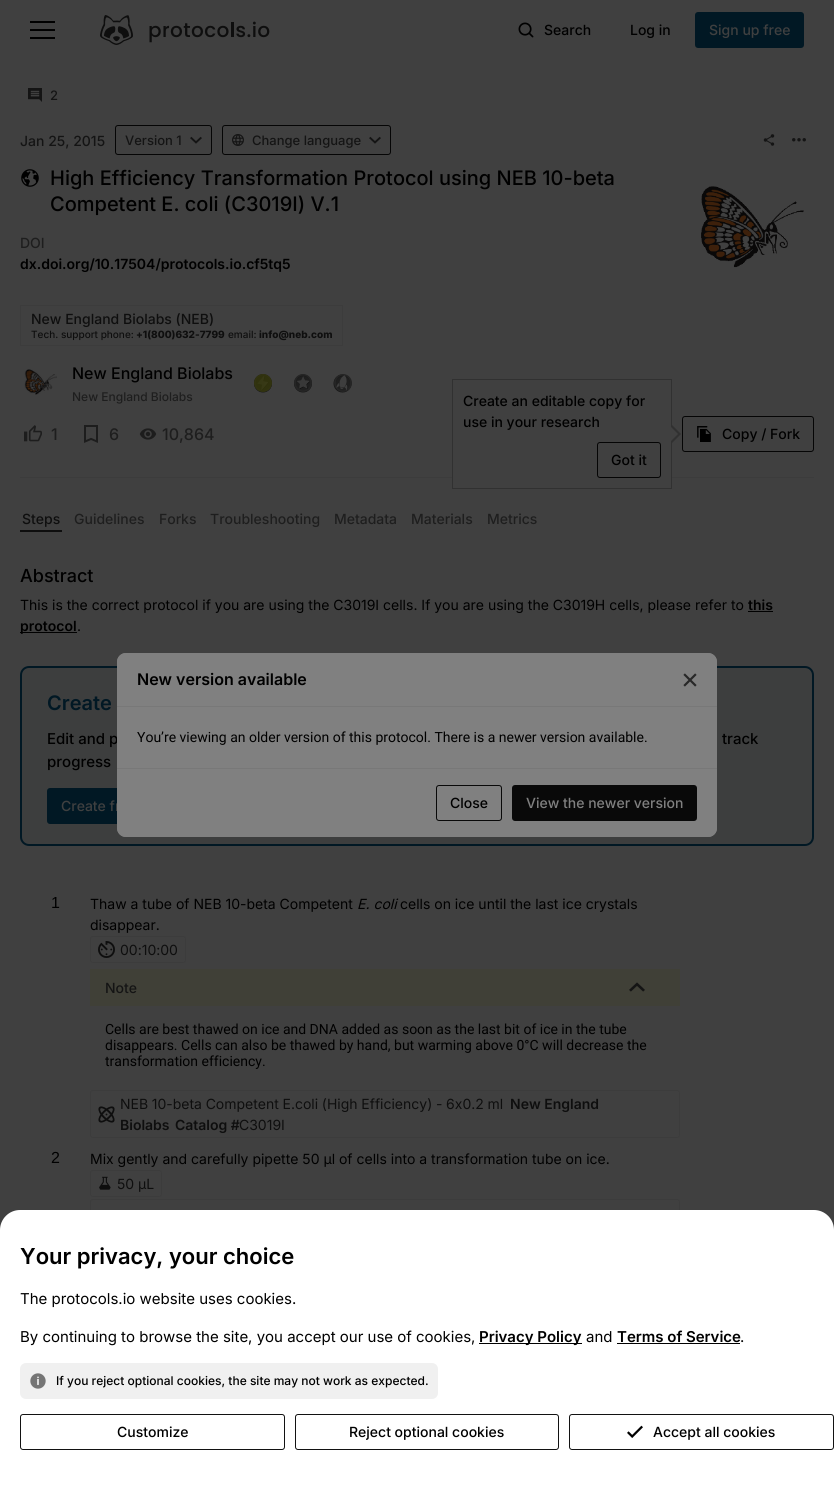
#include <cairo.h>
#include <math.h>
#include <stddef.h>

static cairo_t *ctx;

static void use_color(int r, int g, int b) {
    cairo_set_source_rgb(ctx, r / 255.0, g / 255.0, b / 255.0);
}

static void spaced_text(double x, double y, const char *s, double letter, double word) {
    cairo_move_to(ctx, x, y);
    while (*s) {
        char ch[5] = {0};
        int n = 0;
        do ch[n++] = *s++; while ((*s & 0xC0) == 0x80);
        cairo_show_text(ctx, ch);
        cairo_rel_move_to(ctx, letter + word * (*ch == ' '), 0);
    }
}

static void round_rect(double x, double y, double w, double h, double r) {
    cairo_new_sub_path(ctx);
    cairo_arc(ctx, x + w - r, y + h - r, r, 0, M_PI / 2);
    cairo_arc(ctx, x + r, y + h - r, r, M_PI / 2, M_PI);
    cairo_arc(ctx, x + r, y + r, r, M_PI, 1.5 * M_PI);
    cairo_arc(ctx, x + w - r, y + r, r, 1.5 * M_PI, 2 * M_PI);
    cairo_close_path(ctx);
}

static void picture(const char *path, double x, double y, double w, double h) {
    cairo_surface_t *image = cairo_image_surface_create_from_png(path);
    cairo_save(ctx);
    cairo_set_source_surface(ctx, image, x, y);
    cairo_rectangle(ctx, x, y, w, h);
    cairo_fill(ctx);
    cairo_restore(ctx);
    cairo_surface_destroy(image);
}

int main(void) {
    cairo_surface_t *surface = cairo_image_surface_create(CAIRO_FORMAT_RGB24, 834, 1490);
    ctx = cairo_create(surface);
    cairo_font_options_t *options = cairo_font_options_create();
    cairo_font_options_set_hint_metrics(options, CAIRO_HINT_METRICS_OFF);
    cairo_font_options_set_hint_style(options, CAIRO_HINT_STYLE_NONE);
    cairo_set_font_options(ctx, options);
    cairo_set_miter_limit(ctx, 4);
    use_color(64, 64, 64);
    cairo_paint(ctx);
    use_color(0, 0, 0);
    cairo_rectangle(ctx, 30, 21, 25, 2);
    cairo_fill(ctx);
    cairo_rectangle(ctx, 30, 29, 25, 2);
    cairo_fill(ctx);
    cairo_rectangle(ctx, 30, 37, 25, 2);
    cairo_fill(ctx);
    picture("img1.png", 100, 15, 170, 30);
    picture("img2.png", 518, 22, 16, 16);
    cairo_select_font_face(ctx, "Inter Medium", CAIRO_FONT_SLANT_NORMAL, CAIRO_FONT_WEIGHT_NORMAL);
    cairo_set_font_size(ctx, 14);
    cairo_move_to(ctx, 544, 35);
    cairo_show_text(ctx, "Search");
    cairo_move_to(ctx, 630, 35);
    cairo_show_text(ctx, "Log in");
    use_color(1, 24, 36);
    round_rect(695, 12, 109, 36, 3);
    cairo_fill(ctx);
    use_color(64, 64, 64);
    cairo_move_to(ctx, 709, 35);
    cairo_show_text(ctx, "Sign up free");
    use_color(60, 60, 60);
    cairo_rectangle(ctx, 20, 477, 794, 1);
    cairo_fill(ctx);
    picture("img3.png", 28, 88, 14, 14);
    cairo_set_font_size(ctx, 13);
    use_color(20, 20, 20);
    cairo_move_to(ctx, 50, 100);
    cairo_show_text(ctx, "2");
    cairo_set_font_size(ctx, 14);
    cairo_move_to(ctx, 20, 146);
    cairo_show_text(ctx, "Jan 25, 2015");
    round_rect(115.5, 125.5, 96, 29, 2.5);
    use_color(5, 5, 5);
    cairo_set_line_width(ctx, 1);
    cairo_stroke(ctx);
    cairo_set_font_size(ctx, 13);
    use_color(20, 20, 20);
    cairo_move_to(ctx, 125, 145);
    cairo_show_text(ctx, "Version 1");
    picture("img4.png", 190, 136, 12, 8);
    round_rect(222.5, 125.5, 168, 29, 2.5);
    use_color(5, 5, 5);
    cairo_stroke(ctx);
    picture("img5.png", 232, 134, 12, 12);
    use_color(20, 20, 20);
    cairo_move_to(ctx, 252, 145);
    cairo_show_text(ctx, "Change language");
    picture("img4.png", 369, 136, 12, 8);
    picture("img6.png", 763, 134, 12, 12);
    picture("img7.png", 792, 138, 14, 4);
    picture("img8.png", 21, 169, 18, 18);
    cairo_set_font_size(ctx, 20);
    use_color(0, 0, 0);
    cairo_move_to(ctx, 50, 185);
    cairo_show_text(ctx, "High Efficiency Transformation Protocol using NEB 10-beta");
    cairo_move_to(ctx, 50, 211);
    cairo_show_text(ctx, "Competent E. coli (C3019I) V.1");
    cairo_set_font_size(ctx, 14);
    use_color(30, 30, 30);
    cairo_move_to(ctx, 20, 248);
    cairo_show_text(ctx, "DOI");
    cairo_select_font_face(ctx, "Inter SemiBold", CAIRO_FONT_SLANT_NORMAL, CAIRO_FONT_WEIGHT_NORMAL);
    use_color(0, 0, 0);
    cairo_move_to(ctx, 20, 269);
    cairo_show_text(ctx, "dx.doi.org/10.17504/protocols.io.cf5tq5");
    picture("img9.png", 701, 186, 103, 82);
    cairo_rectangle(ctx, 20.5, 305.5, 322, 40);
    use_color(60, 60, 60);
    cairo_stroke(ctx);
    cairo_select_font_face(ctx, "Inter Medium", CAIRO_FONT_SLANT_NORMAL, CAIRO_FONT_WEIGHT_NORMAL);
    use_color(14, 14, 14);
    cairo_move_to(ctx, 31, 324);
    cairo_show_text(ctx, "New England Biolabs (NEB)");
    cairo_set_font_size(ctx, 10);
    cairo_move_to(ctx, 31, 338);
    cairo_show_text(ctx, "Tech. support phone:");
    cairo_select_font_face(ctx, "Inter ExtraBold", CAIRO_FONT_SLANT_NORMAL, CAIRO_FONT_WEIGHT_NORMAL);
    cairo_move_to(ctx, 136, 338);
    cairo_show_text(ctx, "+1(800)632-7799");
    cairo_select_font_face(ctx, "Inter Medium", CAIRO_FONT_SLANT_NORMAL, CAIRO_FONT_WEIGHT_NORMAL);
    cairo_move_to(ctx, 228, 338);
    cairo_show_text(ctx, "email:");
    cairo_select_font_face(ctx, "Inter ExtraBold", CAIRO_FONT_SLANT_NORMAL, CAIRO_FONT_WEIGHT_NORMAL);
    cairo_move_to(ctx, 259, 338);
    cairo_show_text(ctx, "info@neb.com");
    picture("img10.png", 24, 369, 33, 26);
    cairo_select_font_face(ctx, "Inter Medium", CAIRO_FONT_SLANT_NORMAL, CAIRO_FONT_WEIGHT_NORMAL);
    cairo_set_font_size(ctx, 16);
    use_color(0, 0, 0);
    cairo_move_to(ctx, 72, 379);
    cairo_show_text(ctx, "New England Biolabs");
    cairo_set_font_size(ctx, 12);
    use_color(30, 30, 30);
    cairo_move_to(ctx, 72, 401);
    cairo_show_text(ctx, "New England Biolabs");
    picture("img11.png", 254, 374, 18, 19);
    picture("img12.png", 294, 374, 18, 19);
    picture("img13.png", 333, 374, 19, 19);
    picture("img14.png", 24, 425, 18, 17);
    cairo_set_font_size(ctx, 16);
    cairo_move_to(ctx, 51, 440);
    cairo_show_text(ctx, "1");
    picture("img15.png", 84, 425, 14, 18);
    cairo_move_to(ctx, 109, 440);
    cairo_show_text(ctx, "6");
    picture("img16.png", 139, 428, 18, 12);
    cairo_move_to(ctx, 162, 440);
    cairo_show_text(ctx, "10,864");
    use_color(64, 64, 64);
    cairo_rectangle(ctx, 453, 477, 218, 1);
    cairo_fill(ctx);
    cairo_rectangle(ctx, 452.5, 379.5, 219, 109);
    use_color(49, 49, 49);
    cairo_stroke(ctx);
    cairo_set_font_size(ctx, 14);
    use_color(0, 0, 0);
    cairo_move_to(ctx, 463, 406);
    cairo_show_text(ctx, "Create an editable copy for");
    cairo_move_to(ctx, 463, 427);
    cairo_show_text(ctx, "use in your research");
    use_color(49, 49, 49);
    cairo_new_path(ctx);
    cairo_move_to(ctx, 671, 444);
    cairo_line_to(ctx, 671, 424);
    cairo_line_to(ctx, 681, 434);
    cairo_close_path(ctx);
    cairo_fill(ctx);
    use_color(64, 64, 64);
    cairo_new_path(ctx);
    cairo_move_to(ctx, 670, 442);
    cairo_line_to(ctx, 670, 426);
    cairo_line_to(ctx, 678, 434);
    cairo_close_path(ctx);
    cairo_fill(ctx);
    round_rect(597.5, 442.5, 63, 35, 2.5);
    use_color(5, 5, 5);
    cairo_stroke(ctx);
    use_color(0, 0, 0);
    cairo_move_to(ctx, 611, 465);
    cairo_show_text(ctx, "Got it");
    round_rect(682.5, 416.5, 131, 35, 2.5);
    use_color(5, 5, 5);
    cairo_stroke(ctx);
    picture("img17.png", 697, 426, 14, 16);
    use_color(0, 0, 0);
    cairo_move_to(ctx, 722, 439);
    cairo_show_text(ctx, "Copy / Fork");
    use_color(14, 14, 14);
    cairo_move_to(ctx, 22, 524);
    cairo_show_text(ctx, "Steps");
    use_color(30, 30, 30);
    cairo_move_to(ctx, 74, 524);
    cairo_show_text(ctx, "Guidelines");
    cairo_move_to(ctx, 159, 524);
    cairo_show_text(ctx, "Forks");
    cairo_move_to(ctx, 210, 524);
    cairo_show_text(ctx, "Troubleshooting");
    cairo_move_to(ctx, 334, 524);
    cairo_show_text(ctx, "Metadata");
    cairo_move_to(ctx, 411, 524);
    cairo_show_text(ctx, "Materials");
    cairo_move_to(ctx, 487, 524);
    cairo_show_text(ctx, "Metrics");
    use_color(14, 14, 14);
    cairo_rectangle(ctx, 20, 530, 42, 2);
    cairo_fill(ctx);
    cairo_set_font_size(ctx, 18);
    use_color(0, 0, 0);
    cairo_move_to(ctx, 20, 582);
    cairo_show_text(ctx, "Abstract");
    cairo_select_font_face(ctx, "Inter", CAIRO_FONT_SLANT_NORMAL, CAIRO_FONT_WEIGHT_NORMAL);
    cairo_set_font_size(ctx, 14);
    cairo_move_to(ctx, 20, 610);
    cairo_show_text(ctx, "This is the correct protocol if you are using the C3019I cells. If you are using the C3019H cells, please refer to");
    cairo_select_font_face(ctx, "Inter SemiBold", CAIRO_FONT_SLANT_NORMAL, CAIRO_FONT_WEIGHT_NORMAL);
    cairo_move_to(ctx, 748, 610);
    cairo_show_text(ctx, "this");
    cairo_rectangle(ctx, 748, 611, 25, 1);
    cairo_fill(ctx);
    cairo_rectangle(ctx, 20, 632, 57, 1);
    cairo_fill(ctx);
    cairo_move_to(ctx, 20, 631);
    cairo_show_text(ctx, "protocol");
    cairo_select_font_face(ctx, "Inter", CAIRO_FONT_SLANT_NORMAL, CAIRO_FONT_WEIGHT_NORMAL);
    cairo_move_to(ctx, 77, 631);
    cairo_show_text(ctx, ".");
    use_color(61, 62, 62);
    round_rect(21, 667, 792, 178, 8);
    cairo_fill_preserve(ctx);
    use_color(1, 24, 36);
    cairo_set_line_width(ctx, 2);
    cairo_stroke(ctx);
    cairo_select_font_face(ctx, "Inter SemiBold", CAIRO_FONT_SLANT_NORMAL, CAIRO_FONT_WEIGHT_NORMAL);
    cairo_set_font_size(ctx, 20);
    cairo_move_to(ctx, 47, 710);
    cairo_show_text(ctx, "Create");
    cairo_select_font_face(ctx, "Inter Medium", CAIRO_FONT_SLANT_NORMAL, CAIRO_FONT_WEIGHT_NORMAL);
    cairo_set_font_size(ctx, 15);
    use_color(0, 0, 0);
    cairo_move_to(ctx, 47, 744);
    cairo_show_text(ctx, "Edit and p");
    cairo_move_to(ctx, 722, 744);
    cairo_show_text(ctx, "track");
    cairo_move_to(ctx, 47, 767);
    cairo_show_text(ctx, "progress");
    use_color(1, 24, 36);
    round_rect(47, 788, 162, 36, 3);
    cairo_fill(ctx);
    cairo_set_font_size(ctx, 14);
    use_color(64, 64, 64);
    cairo_move_to(ctx, 61, 811);
    cairo_show_text(ctx, "Create fr");
    cairo_select_font_face(ctx, "Liberation Sans", CAIRO_FONT_SLANT_NORMAL, CAIRO_FONT_WEIGHT_NORMAL);
    cairo_set_font_size(ctx, 16);
    use_color(0, 0, 0);
    cairo_move_to(ctx, 51, 908);
    cairo_show_text(ctx, "1");
    cairo_select_font_face(ctx, "Inter", CAIRO_FONT_SLANT_NORMAL, CAIRO_FONT_WEIGHT_NORMAL);
    cairo_set_font_size(ctx, 14);
    cairo_move_to(ctx, 90, 909);
    cairo_show_text(ctx, "Thaw a tube of NEB 10-beta Competent");
    cairo_select_font_face(ctx, "Inter", CAIRO_FONT_SLANT_ITALIC, CAIRO_FONT_WEIGHT_NORMAL);
    cairo_move_to(ctx, 357, 909);
    cairo_show_text(ctx, "E. coli");
    cairo_select_font_face(ctx, "Inter", CAIRO_FONT_SLANT_NORMAL, CAIRO_FONT_WEIGHT_NORMAL);
    cairo_move_to(ctx, 400, 909);
    cairo_show_text(ctx, "cells on ice until the last ice crystals");
    cairo_move_to(ctx, 90, 930);
    cairo_show_text(ctx, "disappear.");
    round_rect(90.5, 936.5, 95, 26, 2.5);
    use_color(60, 60, 60);
    cairo_set_line_width(ctx, 1);
    cairo_stroke(ctx);
    picture("img18.png", 98, 941, 17, 17);
    use_color(14, 14, 14);
    cairo_move_to(ctx, 120, 955);
    cairo_show_text(ctx, "00:10:00");
    use_color(64, 64, 55);
    cairo_rectangle(ctx, 90, 969, 590, 37);
    cairo_fill(ctx);
    cairo_select_font_face(ctx, "Inter Medium", CAIRO_FONT_SLANT_NORMAL, CAIRO_FONT_WEIGHT_NORMAL);
    use_color(20, 20, 20);
    cairo_move_to(ctx, 105, 993);
    cairo_show_text(ctx, "Note");
    picture("img19.png", 629, 982, 16, 10);
    cairo_select_font_face(ctx, "Roboto", CAIRO_FONT_SLANT_NORMAL, CAIRO_FONT_WEIGHT_NORMAL);
    use_color(0, 0, 0);
    cairo_move_to(ctx, 105, 1034);
    cairo_show_text(ctx, "Cells are best thawed on ice and DNA added as soon as the last bit of ice in the tube");
    cairo_move_to(ctx, 105, 1050);
    cairo_show_text(ctx, "disappears. Cells can also be thawed by hand, but warming above 0°C will decrease the");
    cairo_move_to(ctx, 105, 1066);
    cairo_show_text(ctx, "transformation efficiency.");
    round_rect(90.5, 1090.5, 589, 47, 2.5);
    use_color(60, 60, 60);
    cairo_stroke(ctx);
    picture("img20.png", 98, 1106, 17, 17);
    cairo_select_font_face(ctx, "Inter", CAIRO_FONT_SLANT_NORMAL, CAIRO_FONT_WEIGHT_NORMAL);
    use_color(14, 14, 14);
    spaced_text(120, 1109, "NEB 10-beta Competent E.coli (High Efficiency) - 6x0.2 ml", 0, -0.25);
    cairo_select_font_face(ctx, "Inter SemiBold", CAIRO_FONT_SLANT_NORMAL, CAIRO_FONT_WEIGHT_NORMAL);
    cairo_move_to(ctx, 510, 1109);
    cairo_show_text(ctx, "New England");
    cairo_move_to(ctx, 120, 1130);
    cairo_show_text(ctx, "Biolabs");
    cairo_move_to(ctx, 175, 1130);
    cairo_show_text(ctx, "Catalog #");
    cairo_select_font_face(ctx, "Inter", CAIRO_FONT_SLANT_NORMAL, CAIRO_FONT_WEIGHT_NORMAL);
    cairo_move_to(ctx, 239, 1130);
    cairo_show_text(ctx, "C3019I");
    cairo_select_font_face(ctx, "Liberation Sans", CAIRO_FONT_SLANT_NORMAL, CAIRO_FONT_WEIGHT_NORMAL);
    cairo_set_font_size(ctx, 16);
    use_color(0, 0, 0);
    cairo_move_to(ctx, 51, 1163);
    cairo_show_text(ctx, "2");
    cairo_select_font_face(ctx, "Inter", CAIRO_FONT_SLANT_NORMAL, CAIRO_FONT_WEIGHT_NORMAL);
    cairo_set_font_size(ctx, 14);
    cairo_move_to(ctx, 90, 1164);
    cairo_show_text(ctx, "Mix gently and carefully pipette 50 µl of cells into a transformation tube on ice.");
    round_rect(90.5, 1170.5, 71, 26, 2.5);
    use_color(60, 60, 60);
    cairo_stroke(ctx);
    picture("img21.png", 99, 1176, 12, 14);
    use_color(14, 14, 14);
    cairo_move_to(ctx, 117, 1189);
    cairo_show_text(ctx, "50 µL");
    round_rect(90.5, 1199.5, 589, 47, 2.5);
    use_color(60, 60, 60);
    cairo_stroke(ctx);
    use_color(128, 128, 128);
    round_rect(117, 653, 600, 184, 9);
    cairo_fill(ctx);
    cairo_new_path(ctx);
    cairo_move_to(ctx, 126, 653);
    cairo_line_to(ctx, 708, 653);
    cairo_curve_to(ctx, 713, 653, 717, 657, 717, 662);
    cairo_line_to(ctx, 717, 707);
    cairo_line_to(ctx, 117, 707);
    cairo_line_to(ctx, 117, 662);
    cairo_curve_to(ctx, 117, 657, 121, 653, 126, 653);
    cairo_close_path(ctx);
    cairo_fill(ctx);
    use_color(120, 120, 120);
    cairo_rectangle(ctx, 117, 706, 600, 1);
    cairo_fill(ctx);
    cairo_select_font_face(ctx, "Inter SemiBold", CAIRO_FONT_SLANT_NORMAL, CAIRO_FONT_WEIGHT_NORMAL);
    cairo_set_font_size(ctx, 16);
    use_color(0, 0, 0);
    cairo_move_to(ctx, 137, 685);
    cairo_show_text(ctx, "New version available");
    picture("img22.png", 683, 673, 14, 14);
    cairo_select_font_face(ctx, "Roboto", CAIRO_FONT_SLANT_NORMAL, CAIRO_FONT_WEIGHT_NORMAL);
    cairo_set_font_size(ctx, 14);
    cairo_move_to(ctx, 137, 742);
    cairo_show_text(ctx, "You’re viewing an older version of this protocol. There is a newer version available.");
    use_color(128, 128, 128);
    cairo_new_path(ctx);
    cairo_move_to(ctx, 117, 768);
    cairo_line_to(ctx, 717, 768);
    cairo_line_to(ctx, 717, 828);
    cairo_curve_to(ctx, 717, 833, 713, 837, 708, 837);
    cairo_line_to(ctx, 126, 837);
    cairo_curve_to(ctx, 121, 837, 117, 833, 117, 828);
    cairo_close_path(ctx);
    cairo_fill(ctx);
    use_color(120, 120, 120);
    cairo_rectangle(ctx, 117, 768, 600, 1);
    cairo_fill(ctx);
    round_rect(436.5, 785.5, 65, 35, 2.5);
    use_color(9, 9, 9);
    cairo_stroke(ctx);
    cairo_select_font_face(ctx, "Inter Medium", CAIRO_FONT_SLANT_NORMAL, CAIRO_FONT_WEIGHT_NORMAL);
    use_color(0, 0, 0);
    cairo_move_to(ctx, 450, 808);
    cairo_show_text(ctx, "Close");
    use_color(9, 9, 9);
    round_rect(512, 785, 185, 36, 3);
    cairo_fill(ctx);
    use_color(128, 128, 128);
    cairo_move_to(ctx, 526, 808);
    cairo_show_text(ctx, "View the newer version");
    use_color(255, 255, 255);
    cairo_new_path(ctx);
    cairo_move_to(ctx, 20, 1210);
    cairo_line_to(ctx, 814, 1210);
    cairo_curve_to(ctx, 825, 1210, 834, 1219, 834, 1230);
    cairo_line_to(ctx, 834, 1490);
    cairo_line_to(ctx, 0, 1490);
    cairo_line_to(ctx, 0, 1230);
    cairo_curve_to(ctx, 0, 1219, 9, 1210, 20, 1210);
    cairo_close_path(ctx);
    cairo_fill(ctx);
    cairo_select_font_face(ctx, "Inter SemiBold", CAIRO_FONT_SLANT_NORMAL, CAIRO_FONT_WEIGHT_NORMAL);
    cairo_set_font_size(ctx, 22);
    use_color(0, 0, 0);
    cairo_move_to(ctx, 20, 1264);
    cairo_show_text(ctx, "Your privacy, your choice");
    cairo_select_font_face(ctx, "Inter", CAIRO_FONT_SLANT_NORMAL, CAIRO_FONT_WEIGHT_NORMAL);
    cairo_set_font_size(ctx, 15);
    cairo_move_to(ctx, 20, 1304);
    cairo_show_text(ctx, "The protocols.io website uses cookies.");
    cairo_move_to(ctx, 20, 1342);
    cairo_show_text(ctx, "By continuing to browse the site, you accept our use of cookies,");
    cairo_rectangle(ctx, 479, 1343, 103, 1);
    cairo_fill(ctx);
    cairo_select_font_face(ctx, "Inter SemiBold", CAIRO_FONT_SLANT_NORMAL, CAIRO_FONT_WEIGHT_NORMAL);
    cairo_move_to(ctx, 479, 1342);
    cairo_show_text(ctx, "Privacy Policy");
    cairo_select_font_face(ctx, "Inter", CAIRO_FONT_SLANT_NORMAL, CAIRO_FONT_WEIGHT_NORMAL);
    cairo_move_to(ctx, 586, 1342);
    cairo_show_text(ctx, "and");
    cairo_select_font_face(ctx, "Inter SemiBold", CAIRO_FONT_SLANT_NORMAL, CAIRO_FONT_WEIGHT_NORMAL);
    cairo_move_to(ctx, 617, 1342);
    cairo_show_text(ctx, "Terms of Service");
    cairo_rectangle(ctx, 617, 1343, 123, 1);
    cairo_fill(ctx);
    cairo_select_font_face(ctx, "Inter", CAIRO_FONT_SLANT_NORMAL, CAIRO_FONT_WEIGHT_NORMAL);
    cairo_move_to(ctx, 740, 1342);
    cairo_show_text(ctx, ".");
    use_color(240, 240, 240);
    round_rect(20, 1363, 418, 36, 6);
    cairo_fill(ctx);
    picture("img23.png", 30, 1373, 16, 16);
    cairo_select_font_face(ctx, "Inter Medium", CAIRO_FONT_SLANT_NORMAL, CAIRO_FONT_WEIGHT_NORMAL);
    cairo_set_font_size(ctx, 12);
    use_color(0, 0, 0);
    cairo_move_to(ctx, 56, 1385);
    cairo_show_text(ctx, "If you reject optional cookies, the site may not work as expected.");
    round_rect(20.5, 1414.5, 264, 35, 2.5);
    use_color(18, 18, 18);
    cairo_stroke(ctx);
    cairo_set_font_size(ctx, 14);
    use_color(0, 0, 0);
    cairo_move_to(ctx, 117, 1437);
    cairo_show_text(ctx, "Customize");
    round_rect(295.5, 1414.5, 263, 35, 2.5);
    use_color(18, 18, 18);
    cairo_stroke(ctx);
    use_color(0, 0, 0);
    cairo_move_to(ctx, 349, 1437);
    cairo_show_text(ctx, "Reject optional cookies");
    round_rect(569.5, 1414.5, 264, 35, 2.5);
    use_color(18, 18, 18);
    cairo_stroke(ctx);
    picture("img24.png", 627, 1425, 16, 13);
    use_color(0, 0, 0);
    cairo_move_to(ctx, 653, 1437);
    cairo_show_text(ctx, "Accept all cookies");
    cairo_surface_write_to_png(surface, "result.png");
    cairo_font_options_destroy(options);
    cairo_destroy(ctx);
    cairo_surface_destroy(surface);
    return 0;
}
